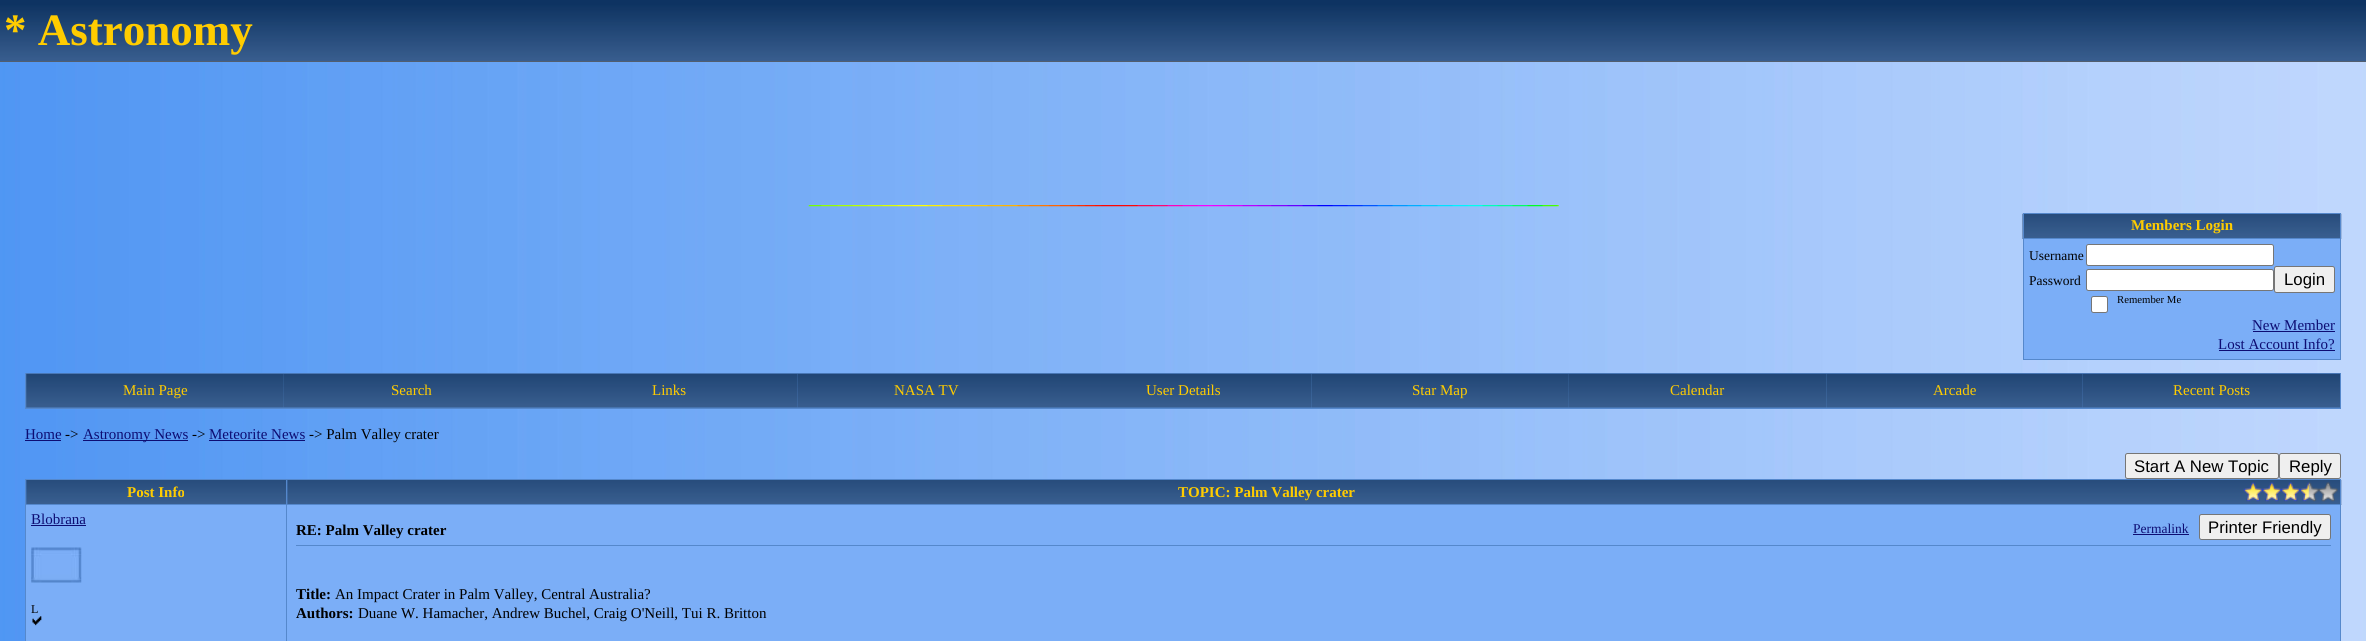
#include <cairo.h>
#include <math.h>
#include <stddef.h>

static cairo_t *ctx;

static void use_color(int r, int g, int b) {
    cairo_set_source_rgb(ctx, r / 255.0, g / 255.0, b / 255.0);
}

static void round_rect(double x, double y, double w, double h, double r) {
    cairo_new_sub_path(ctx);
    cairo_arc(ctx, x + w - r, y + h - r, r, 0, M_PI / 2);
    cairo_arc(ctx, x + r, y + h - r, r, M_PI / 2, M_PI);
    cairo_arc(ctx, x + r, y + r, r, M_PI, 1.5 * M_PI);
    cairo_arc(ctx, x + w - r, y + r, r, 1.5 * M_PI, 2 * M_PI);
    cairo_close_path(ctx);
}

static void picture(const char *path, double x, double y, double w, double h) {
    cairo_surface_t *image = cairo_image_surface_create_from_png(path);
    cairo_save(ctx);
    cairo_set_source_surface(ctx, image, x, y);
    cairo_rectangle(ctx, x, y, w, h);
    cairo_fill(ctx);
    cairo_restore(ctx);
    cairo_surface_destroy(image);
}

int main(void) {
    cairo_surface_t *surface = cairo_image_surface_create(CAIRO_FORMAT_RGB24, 2366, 641);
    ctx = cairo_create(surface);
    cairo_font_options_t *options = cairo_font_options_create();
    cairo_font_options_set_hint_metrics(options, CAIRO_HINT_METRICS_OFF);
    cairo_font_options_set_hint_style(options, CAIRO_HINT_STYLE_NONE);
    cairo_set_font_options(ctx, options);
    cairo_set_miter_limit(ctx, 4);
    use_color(255, 255, 255);
    cairo_paint(ctx);
    picture("img1.png", 0, 62, 2366, 579);
    picture("img2.png", 0, 0, 2366, 61);
    use_color(82, 94, 110);
    cairo_rectangle(ctx, 0, 61, 2366, 1);
    cairo_fill(ctx);
    cairo_select_font_face(ctx, "Liberation Serif", CAIRO_FONT_SLANT_NORMAL, CAIRO_FONT_WEIGHT_BOLD);
    cairo_set_font_size(ctx, 45);
    use_color(255, 204, 0);
    cairo_move_to(ctx, 4, 45);
    cairo_show_text(ctx, "* Astronomy");
    picture("img3.png", 808, 205, 751, 2);
    picture("img4.png", 2022, 213, 320, 26);
    use_color(85, 136, 204);
    cairo_rectangle(ctx, 2023, 213, 318, 1);
    cairo_fill(ctx);
    cairo_rectangle(ctx, 2340, 213, 1, 147);
    cairo_fill(ctx);
    cairo_rectangle(ctx, 2023, 359, 318, 1);
    cairo_fill(ctx);
    cairo_rectangle(ctx, 2023, 213, 1, 147);
    cairo_fill(ctx);
    cairo_rectangle(ctx, 2023, 238, 318, 1);
    cairo_fill(ctx);
    cairo_set_font_size(ctx, 15);
    use_color(255, 204, 0);
    cairo_move_to(ctx, 2131, 230);
    cairo_show_text(ctx, "Members Login");
    use_color(123, 174, 247);
    cairo_rectangle(ctx, 2024, 239, 316, 120);
    cairo_fill(ctx);
    cairo_select_font_face(ctx, "Liberation Serif", CAIRO_FONT_SLANT_NORMAL, CAIRO_FONT_WEIGHT_NORMAL);
    cairo_set_font_size(ctx, 13.5);
    use_color(0, 0, 0);
    cairo_move_to(ctx, 2029, 260);
    cairo_show_text(ctx, "Username");
    use_color(255, 255, 255);
    round_rect(2086.5, 244.5, 187, 21, 2);
    cairo_fill_preserve(ctx);
    use_color(118, 118, 118);
    cairo_set_line_width(ctx, 1);
    cairo_stroke(ctx);
    use_color(0, 0, 0);
    cairo_move_to(ctx, 2029, 285);
    cairo_show_text(ctx, "Password");
    use_color(255, 255, 255);
    round_rect(2086.5, 269.5, 187, 21, 2);
    cairo_fill_preserve(ctx);
    use_color(118, 118, 118);
    cairo_stroke(ctx);
    use_color(239, 239, 239);
    round_rect(2274.5, 266.5, 60, 26, 2);
    cairo_fill_preserve(ctx);
    use_color(118, 118, 118);
    cairo_stroke(ctx);
    cairo_select_font_face(ctx, "Liberation Sans", CAIRO_FONT_SLANT_NORMAL, CAIRO_FONT_WEIGHT_NORMAL);
    cairo_set_font_size(ctx, 16.75);
    use_color(0, 0, 0);
    cairo_move_to(ctx, 2284, 285);
    cairo_show_text(ctx, "Login");
    use_color(255, 255, 255);
    round_rect(2091.5, 296.5, 16, 16, 2);
    cairo_fill_preserve(ctx);
    use_color(118, 118, 118);
    cairo_stroke(ctx);
    cairo_select_font_face(ctx, "Liberation Serif", CAIRO_FONT_SLANT_NORMAL, CAIRO_FONT_WEIGHT_NORMAL);
    cairo_set_font_size(ctx, 10.75);
    use_color(0, 0, 0);
    cairo_move_to(ctx, 2117, 303);
    cairo_show_text(ctx, "Remember Me");
    cairo_set_font_size(ctx, 15);
    use_color(13, 13, 115);
    cairo_move_to(ctx, 2252, 330);
    cairo_show_text(ctx, "New Member");
    cairo_rectangle(ctx, 2253, 331, 82, 1);
    cairo_fill(ctx);
    cairo_move_to(ctx, 2218, 349);
    cairo_show_text(ctx, "Lost Account Info?");
    cairo_rectangle(ctx, 2219, 350, 116, 1);
    cairo_fill(ctx);
    cairo_rectangle(ctx, 25.5, 373.5, 2315, 35);
    use_color(85, 136, 204);
    cairo_stroke(ctx);
    cairo_rectangle(ctx, 26, 374, 258, 34);
    cairo_fill(ctx);
    picture("img5.png", 26, 373, 258, 35);
    use_color(255, 204, 0);
    cairo_move_to(ctx, 123, 395);
    cairo_show_text(ctx, "Main Page");
    use_color(85, 136, 204);
    cairo_rectangle(ctx, 284, 407, 256, 1);
    cairo_fill(ctx);
    picture("img6.png", 283, 373, 257, 35);
    use_color(255, 204, 0);
    cairo_move_to(ctx, 391, 395);
    cairo_show_text(ctx, "Search");
    use_color(85, 136, 204);
    cairo_rectangle(ctx, 540, 374, 258, 34);
    cairo_fill(ctx);
    picture("img7.png", 540, 373, 258, 35);
    use_color(255, 204, 0);
    cairo_move_to(ctx, 652, 395);
    cairo_show_text(ctx, "Links");
    use_color(85, 136, 204);
    cairo_rectangle(ctx, 798, 407, 513, 1);
    cairo_fill(ctx);
    picture("img8.png", 797, 373, 258, 35);
    use_color(255, 204, 0);
    cairo_move_to(ctx, 894, 395);
    cairo_show_text(ctx, "NASA TV");
    picture("img9.png", 1055, 373, 257, 35);
    cairo_move_to(ctx, 1146, 395);
    cairo_show_text(ctx, "User Details");
    use_color(85, 136, 204);
    cairo_rectangle(ctx, 1311, 374, 258, 34);
    cairo_fill(ctx);
    picture("img10.png", 1311, 373, 258, 35);
    use_color(255, 204, 0);
    cairo_move_to(ctx, 1412, 395);
    cairo_show_text(ctx, "Star Map");
    use_color(85, 136, 204);
    cairo_rectangle(ctx, 1569, 407, 257, 1);
    cairo_fill(ctx);
    picture("img11.png", 1568, 373, 259, 35);
    use_color(255, 204, 0);
    cairo_move_to(ctx, 1670, 395);
    cairo_show_text(ctx, "Calendar");
    use_color(85, 136, 204);
    cairo_rectangle(ctx, 1826, 374, 257, 34);
    cairo_fill(ctx);
    picture("img12.png", 1826, 373, 257, 35);
    use_color(255, 204, 0);
    cairo_move_to(ctx, 1933, 395);
    cairo_show_text(ctx, "Arcade");
    use_color(85, 136, 204);
    cairo_rectangle(ctx, 2083, 407, 257, 1);
    cairo_fill(ctx);
    picture("img8.png", 2082, 373, 258, 35);
    use_color(255, 204, 0);
    cairo_move_to(ctx, 2173, 395);
    cairo_show_text(ctx, "Recent Posts");
    use_color(13, 13, 115);
    cairo_move_to(ctx, 25, 439);
    cairo_show_text(ctx, "Home");
    cairo_rectangle(ctx, 25, 440, 36, 1);
    cairo_fill(ctx);
    use_color(0, 0, 0);
    cairo_move_to(ctx, 65, 439);
    cairo_show_text(ctx, "->");
    use_color(13, 13, 115);
    cairo_rectangle(ctx, 83, 440, 105, 1);
    cairo_fill(ctx);
    cairo_move_to(ctx, 83, 439);
    cairo_show_text(ctx, "Astronomy News");
    use_color(0, 0, 0);
    cairo_move_to(ctx, 192, 439);
    cairo_show_text(ctx, "->");
    use_color(13, 13, 115);
    cairo_move_to(ctx, 209, 439);
    cairo_show_text(ctx, "Meteorite News");
    cairo_rectangle(ctx, 209, 440, 96, 1);
    cairo_fill(ctx);
    use_color(0, 0, 0);
    cairo_move_to(ctx, 309, 439);
    cairo_show_text(ctx, "-> Palm Valley crater");
    use_color(239, 239, 239);
    round_rect(2125.5, 453.5, 153, 25, 2);
    cairo_fill_preserve(ctx);
    use_color(118, 118, 118);
    cairo_stroke(ctx);
    cairo_select_font_face(ctx, "Liberation Sans", CAIRO_FONT_SLANT_NORMAL, CAIRO_FONT_WEIGHT_NORMAL);
    cairo_set_font_size(ctx, 16.75);
    use_color(0, 0, 0);
    cairo_move_to(ctx, 2134, 472);
    cairo_show_text(ctx, "Start A New Topic");
    use_color(239, 239, 239);
    round_rect(2279.5, 453.5, 61, 25, 2);
    cairo_fill_preserve(ctx);
    use_color(118, 118, 118);
    cairo_stroke(ctx);
    use_color(0, 0, 0);
    cairo_move_to(ctx, 2289, 472);
    cairo_show_text(ctx, "Reply");
    use_color(85, 136, 204);
    cairo_rectangle(ctx, 25, 479, 2316, 1);
    cairo_fill(ctx);
    picture("img13.png", 26, 480, 262, 24);
    picture("img14.png", 287, 480, 2055, 25);
    cairo_rectangle(ctx, 2340, 479, 1, 162);
    cairo_fill(ctx);
    cairo_rectangle(ctx, 25, 479, 1, 162);
    cairo_fill(ctx);
    cairo_rectangle(ctx, 286, 504, 2055, 1);
    cairo_fill(ctx);
    use_color(123, 174, 247);
    cairo_rectangle(ctx, 26, 505, 2314, 136);
    cairo_fill(ctx);
    use_color(85, 136, 204);
    cairo_rectangle(ctx, 286, 504, 1, 137);
    cairo_fill(ctx);
    cairo_rectangle(ctx, 25, 504, 263, 1);
    cairo_fill(ctx);
    cairo_rectangle(ctx, 286, 479, 1, 26);
    cairo_fill(ctx);
    cairo_select_font_face(ctx, "Liberation Serif", CAIRO_FONT_SLANT_NORMAL, CAIRO_FONT_WEIGHT_BOLD);
    cairo_set_font_size(ctx, 15);
    use_color(255, 204, 0);
    cairo_move_to(ctx, 127, 497);
    cairo_show_text(ctx, "Post Info");
    cairo_move_to(ctx, 1178, 497);
    cairo_show_text(ctx, "TOPIC: Palm Valley crater");
    picture("img15.png", 2243, 482, 95, 20);
    picture("img16.png", 2243, 482, 66, 20);
    cairo_select_font_face(ctx, "Liberation Serif", CAIRO_FONT_SLANT_NORMAL, CAIRO_FONT_WEIGHT_NORMAL);
    use_color(13, 13, 115);
    cairo_move_to(ctx, 31, 524);
    cairo_show_text(ctx, "Blobrana");
    cairo_rectangle(ctx, 31, 525, 55, 1);
    cairo_fill(ctx);
    picture("img17.png", 31, 547, 51, 36);
    cairo_set_font_size(ctx, 12);
    use_color(0, 0, 0);
    cairo_move_to(ctx, 31, 613);
    cairo_show_text(ctx, "L");
    picture("img18.png", 32, 616, 10, 10);
    cairo_select_font_face(ctx, "Liberation Serif", CAIRO_FONT_SLANT_NORMAL, CAIRO_FONT_WEIGHT_BOLD);
    cairo_set_font_size(ctx, 15);
    cairo_move_to(ctx, 296, 535);
    cairo_show_text(ctx, "RE: Palm Valley crater");
    cairo_select_font_face(ctx, "Liberation Serif", CAIRO_FONT_SLANT_NORMAL, CAIRO_FONT_WEIGHT_NORMAL);
    cairo_set_font_size(ctx, 13.5);
    use_color(13, 13, 115);
    cairo_move_to(ctx, 2133, 533);
    cairo_show_text(ctx, "Permalink");
    cairo_rectangle(ctx, 2133, 534, 56, 1);
    cairo_fill(ctx);
    use_color(239, 239, 239);
    round_rect(2199.5, 514.5, 131, 25, 2);
    cairo_fill_preserve(ctx);
    use_color(118, 118, 118);
    cairo_stroke(ctx);
    cairo_select_font_face(ctx, "Liberation Sans", CAIRO_FONT_SLANT_NORMAL, CAIRO_FONT_WEIGHT_NORMAL);
    cairo_set_font_size(ctx, 16.75);
    use_color(0, 0, 0);
    cairo_move_to(ctx, 2208, 533);
    cairo_show_text(ctx, "Printer Friendly");
    use_color(85, 136, 204);
    cairo_rectangle(ctx, 296, 545, 2035, 1);
    cairo_fill(ctx);
    cairo_select_font_face(ctx, "Liberation Serif", CAIRO_FONT_SLANT_NORMAL, CAIRO_FONT_WEIGHT_BOLD);
    cairo_set_font_size(ctx, 15);
    use_color(0, 0, 0);
    cairo_move_to(ctx, 296, 599);
    cairo_show_text(ctx, "Title:");
    cairo_select_font_face(ctx, "Liberation Serif", CAIRO_FONT_SLANT_NORMAL, CAIRO_FONT_WEIGHT_NORMAL);
    cairo_move_to(ctx, 335, 599);
    cairo_show_text(ctx, "An Impact Crater in Palm Valley, Central Australia?");
    cairo_select_font_face(ctx, "Liberation Serif", CAIRO_FONT_SLANT_NORMAL, CAIRO_FONT_WEIGHT_BOLD);
    cairo_move_to(ctx, 296, 618);
    cairo_show_text(ctx, "Authors:");
    cairo_select_font_face(ctx, "Liberation Serif", CAIRO_FONT_SLANT_NORMAL, CAIRO_FONT_WEIGHT_NORMAL);
    cairo_move_to(ctx, 358, 618);
    cairo_show_text(ctx, "Duane W. Hamacher, Andrew Buchel, Craig O'Neill, Tui R. Britton");
    cairo_surface_write_to_png(surface, "result.png");
    cairo_font_options_destroy(options);
    cairo_destroy(ctx);
    cairo_surface_destroy(surface);
    return 0;
}
